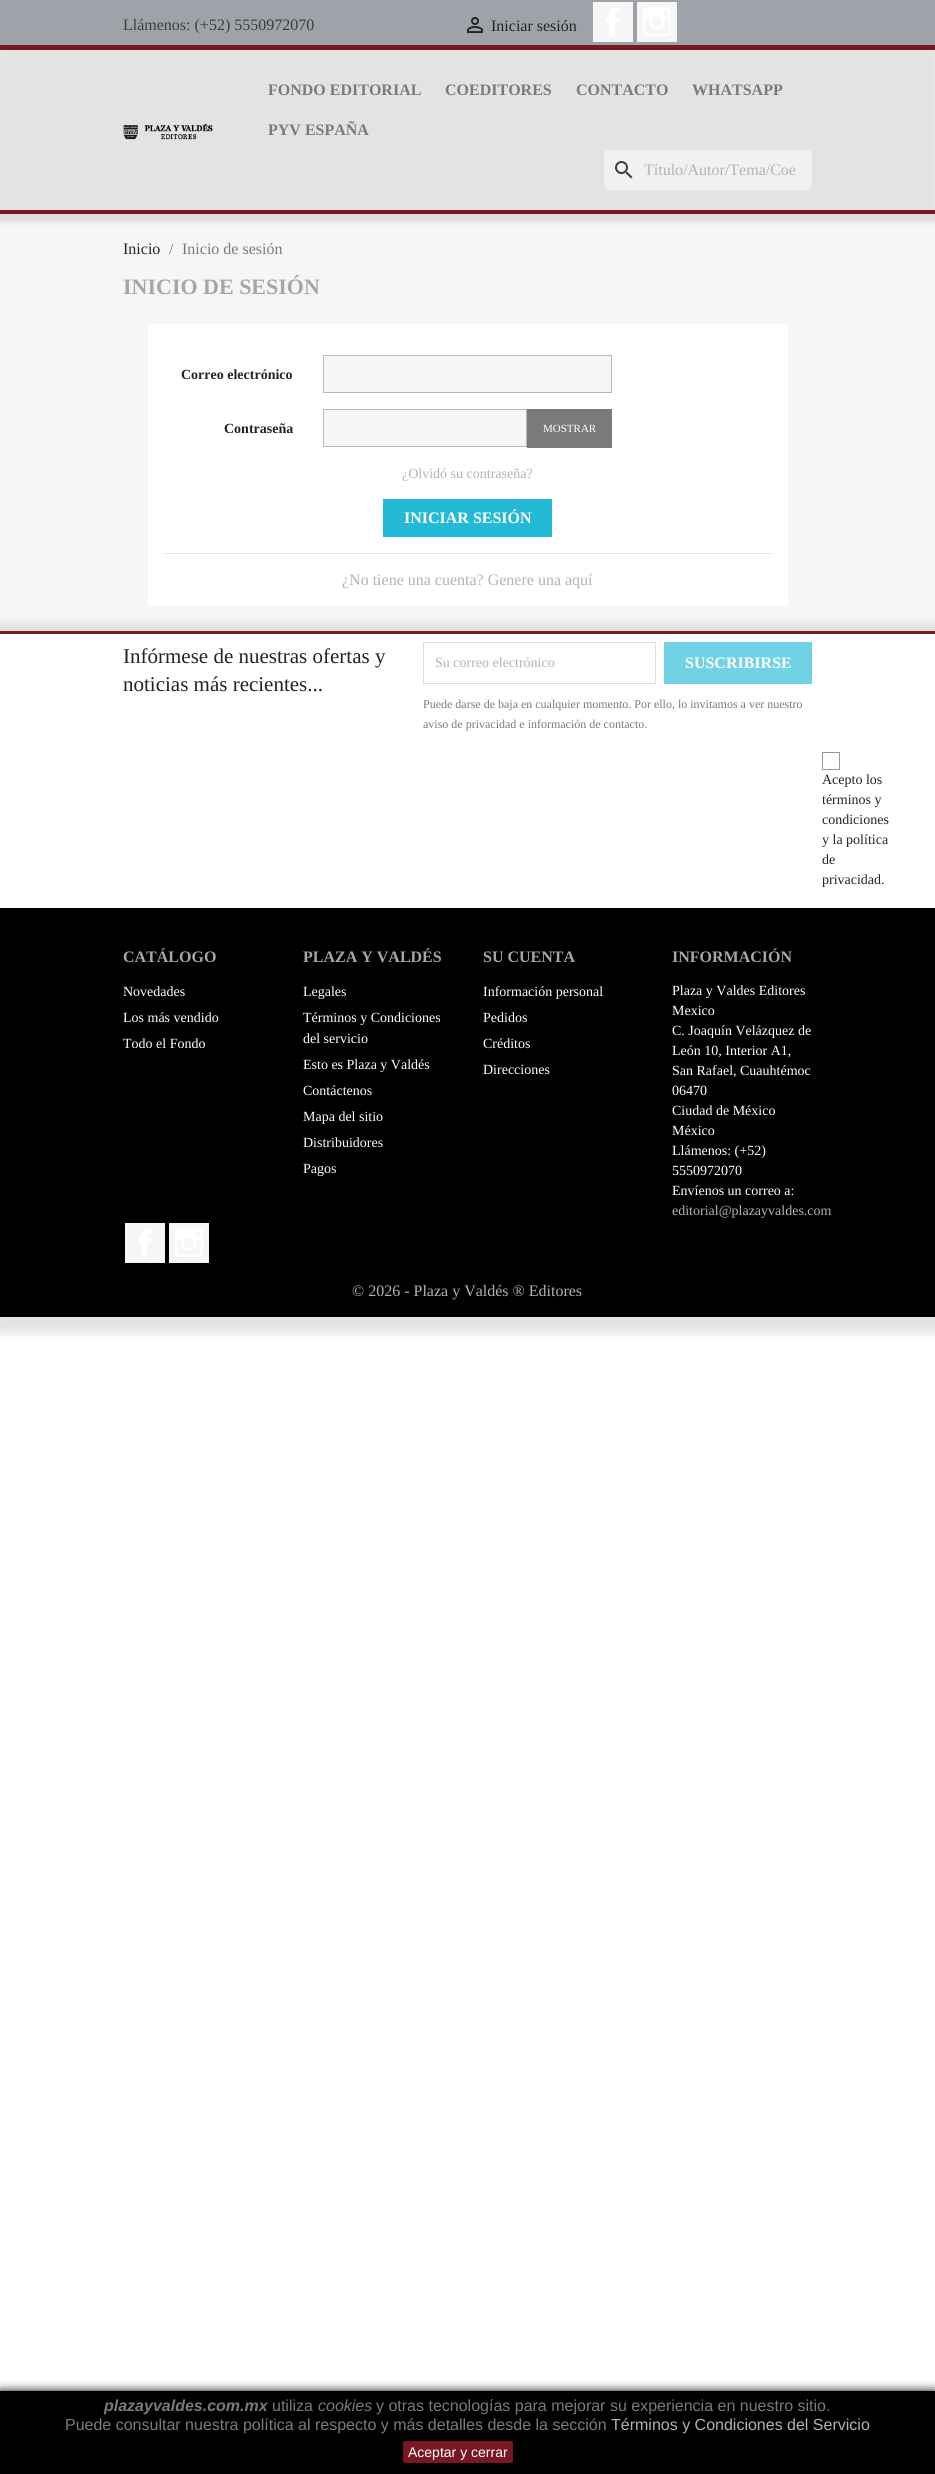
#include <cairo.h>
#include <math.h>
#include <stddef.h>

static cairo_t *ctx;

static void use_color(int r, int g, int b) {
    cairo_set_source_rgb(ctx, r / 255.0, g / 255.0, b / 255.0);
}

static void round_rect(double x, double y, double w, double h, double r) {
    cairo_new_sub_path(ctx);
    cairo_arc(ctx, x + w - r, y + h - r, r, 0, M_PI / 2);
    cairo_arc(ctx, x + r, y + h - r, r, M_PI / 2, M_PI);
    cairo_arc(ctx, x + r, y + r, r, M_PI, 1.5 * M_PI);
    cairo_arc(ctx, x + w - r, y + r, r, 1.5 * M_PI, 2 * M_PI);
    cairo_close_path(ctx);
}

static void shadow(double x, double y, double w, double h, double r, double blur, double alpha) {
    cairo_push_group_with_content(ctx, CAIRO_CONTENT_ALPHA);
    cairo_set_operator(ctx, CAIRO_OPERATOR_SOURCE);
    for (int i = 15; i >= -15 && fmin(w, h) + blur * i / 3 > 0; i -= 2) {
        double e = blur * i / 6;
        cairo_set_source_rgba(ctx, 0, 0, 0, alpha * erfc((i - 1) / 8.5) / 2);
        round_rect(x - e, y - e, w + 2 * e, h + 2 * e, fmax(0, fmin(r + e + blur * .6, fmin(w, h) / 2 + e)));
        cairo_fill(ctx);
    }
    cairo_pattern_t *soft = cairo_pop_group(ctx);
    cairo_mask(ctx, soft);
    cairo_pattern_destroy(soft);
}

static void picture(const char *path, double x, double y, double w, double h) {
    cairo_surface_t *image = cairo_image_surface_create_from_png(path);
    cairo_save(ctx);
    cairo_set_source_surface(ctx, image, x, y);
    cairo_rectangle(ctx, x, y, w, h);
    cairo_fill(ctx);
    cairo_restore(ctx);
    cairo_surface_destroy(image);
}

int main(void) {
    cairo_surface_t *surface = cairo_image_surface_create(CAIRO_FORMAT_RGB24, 935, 2474);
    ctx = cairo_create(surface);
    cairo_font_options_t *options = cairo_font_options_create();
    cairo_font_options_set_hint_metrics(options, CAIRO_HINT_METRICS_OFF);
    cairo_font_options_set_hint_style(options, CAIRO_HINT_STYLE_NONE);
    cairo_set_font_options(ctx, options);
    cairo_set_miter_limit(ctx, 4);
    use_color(255, 255, 255);
    cairo_paint(ctx);
    use_color(246, 246, 246);
    cairo_rectangle(ctx, 0, 214, 935, 417);
    cairo_fill(ctx);
    use_color(0, 0, 0);
    shadow(-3, 2, 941, 220, 0, 2.5, 0.11);
    use_color(121, 24, 35);
    cairo_rectangle(ctx, 0, 210, 935, 4);
    cairo_fill(ctx);
    use_color(159, 163, 169);
    cairo_rectangle(ctx, 0, 0, 935, 45);
    cairo_fill(ctx);
    use_color(121, 24, 35);
    cairo_rectangle(ctx, 0, 45, 935, 5);
    cairo_fill(ctx);
    cairo_select_font_face(ctx, "Liberation Serif", CAIRO_FONT_SLANT_NORMAL, CAIRO_FONT_WEIGHT_NORMAL);
    cairo_set_font_size(ctx, 16);
    use_color(60, 60, 60);
    cairo_move_to(ctx, 123, 30);
    cairo_show_text(ctx, "Llámenos: (+52) 5550972070");
    picture("img1.png", 467, 17, 16, 16);
    use_color(35, 35, 35);
    cairo_move_to(ctx, 491, 31);
    cairo_show_text(ctx, "Iniciar sesión");
    use_color(246, 246, 246);
    cairo_rectangle(ctx, 593, 2, 40, 40);
    cairo_fill(ctx);
    picture("img2.png", 606, 8, 14, 29);
    cairo_rectangle(ctx, 637, 2, 40, 40);
    cairo_fill(ctx);
    picture("img3.png", 643, 7, 28, 29);
    picture("img4.png", 123, 123, 90, 17);
    cairo_select_font_face(ctx, "Liberation Serif", CAIRO_FONT_SLANT_NORMAL, CAIRO_FONT_WEIGHT_BOLD);
    use_color(122, 122, 122);
    cairo_move_to(ctx, 268, 95);
    cairo_show_text(ctx, "FONDO EDITORIAL");
    cairo_move_to(ctx, 445, 95);
    cairo_show_text(ctx, "COEDITORES");
    cairo_move_to(ctx, 576, 95);
    cairo_show_text(ctx, "CONTACTO");
    cairo_move_to(ctx, 692, 95);
    cairo_show_text(ctx, "WHATSAPP");
    cairo_move_to(ctx, 268, 135);
    cairo_show_text(ctx, "PYV ESPAÑA");
    use_color(241, 241, 241);
    round_rect(604, 150, 208, 40, 5);
    cairo_fill(ctx);
    picture("img5.png", 615, 161, 18, 18);
    cairo_select_font_face(ctx, "Liberation Serif", CAIRO_FONT_SLANT_NORMAL, CAIRO_FONT_WEIGHT_NORMAL);
    use_color(179, 179, 179);
    cairo_move_to(ctx, 644, 175);
    cairo_show_text(ctx, "Título/Autor/Tema/Coe");
    use_color(35, 35, 35);
    cairo_move_to(ctx, 123, 254);
    cairo_show_text(ctx, "Inicio");
    use_color(122, 122, 122);
    cairo_move_to(ctx, 169, 254);
    cairo_show_text(ctx, "/");
    cairo_move_to(ctx, 182, 254);
    cairo_show_text(ctx, "Inicio de sesión");
    cairo_select_font_face(ctx, "Liberation Serif", CAIRO_FONT_SLANT_NORMAL, CAIRO_FONT_WEIGHT_BOLD);
    cairo_set_font_size(ctx, 22);
    use_color(166, 166, 166);
    cairo_move_to(ctx, 123, 294);
    cairo_show_text(ctx, "INICIO DE SESIÓN");
    use_color(255, 255, 255);
    cairo_rectangle(ctx, 148, 324, 640, 282);
    cairo_fill(ctx);
    cairo_set_font_size(ctx, 14);
    use_color(35, 35, 35);
    cairo_move_to(ctx, 181, 379);
    cairo_show_text(ctx, "Correo electrónico");
    use_color(246, 246, 246);
    cairo_rectangle(ctx, 323.5, 355.5, 288, 37);
    cairo_fill_preserve(ctx);
    use_color(185, 185, 185);
    cairo_set_line_width(ctx, 1);
    cairo_stroke(ctx);
    use_color(35, 35, 35);
    cairo_move_to(ctx, 224, 433);
    cairo_show_text(ctx, "Contraseña");
    use_color(246, 246, 246);
    cairo_rectangle(ctx, 323.5, 409.5, 203, 37);
    cairo_fill_preserve(ctx);
    use_color(185, 185, 185);
    cairo_stroke(ctx);
    use_color(122, 122, 122);
    cairo_rectangle(ctx, 527, 409, 85, 39);
    cairo_fill(ctx);
    cairo_select_font_face(ctx, "Liberation Serif", CAIRO_FONT_SLANT_NORMAL, CAIRO_FONT_WEIGHT_NORMAL);
    cairo_set_font_size(ctx, 11);
    use_color(255, 255, 255);
    cairo_move_to(ctx, 543, 432);
    cairo_show_text(ctx, "MOSTRAR");
    cairo_set_font_size(ctx, 14);
    use_color(179, 179, 179);
    cairo_move_to(ctx, 402, 478);
    cairo_show_text(ctx, "¿Olvidó su contraseña?");
    use_color(36, 185, 215);
    cairo_rectangle(ctx, 383, 499, 169, 38);
    cairo_fill(ctx);
    cairo_select_font_face(ctx, "Liberation Serif", CAIRO_FONT_SLANT_NORMAL, CAIRO_FONT_WEIGHT_BOLD);
    cairo_set_font_size(ctx, 16);
    use_color(255, 255, 255);
    cairo_move_to(ctx, 404, 523);
    cairo_show_text(ctx, "INICIAR SESIÓN");
    use_color(230, 230, 230);
    cairo_rectangle(ctx, 164, 553, 608, 1);
    cairo_fill(ctx);
    cairo_select_font_face(ctx, "Liberation Serif", CAIRO_FONT_SLANT_NORMAL, CAIRO_FONT_WEIGHT_NORMAL);
    use_color(179, 179, 179);
    cairo_move_to(ctx, 342, 585);
    cairo_show_text(ctx, "¿No tiene una cuenta? Genere una aquí");
    cairo_save(ctx);
    cairo_set_fill_rule(ctx, CAIRO_FILL_RULE_EVEN_ODD);
    cairo_new_path(ctx);
    cairo_move_to(ctx, 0, 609);
    cairo_line_to(ctx, 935, 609);
    cairo_line_to(ctx, 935, 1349);
    cairo_line_to(ctx, 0, 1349);
    cairo_close_path(ctx);
    cairo_move_to(ctx, 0, 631);
    cairo_line_to(ctx, 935, 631);
    cairo_line_to(ctx, 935, 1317);
    cairo_line_to(ctx, 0, 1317);
    cairo_close_path(ctx);
    cairo_clip(ctx);
    use_color(0, 0, 0);
    shadow(-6, 624, 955, 710, 0, 4.5, 0.11);
    cairo_restore(ctx);
    use_color(121, 24, 35);
    cairo_rectangle(ctx, 0, 631, 935, 3);
    cairo_fill(ctx);
    cairo_set_font_size(ctx, 21);
    use_color(35, 35, 35);
    cairo_move_to(ctx, 123, 663);
    cairo_show_text(ctx, "Infórmese de nuestras ofertas y");
    cairo_move_to(ctx, 123, 691);
    cairo_show_text(ctx, "noticias más recientes...");
    cairo_rectangle(ctx, 423.5, 642.5, 232, 41);
    use_color(221, 221, 221);
    cairo_stroke(ctx);
    cairo_set_font_size(ctx, 14);
    use_color(179, 179, 179);
    cairo_move_to(ctx, 435, 667);
    cairo_show_text(ctx, "Su correo electrónico");
    use_color(113, 210, 229);
    cairo_rectangle(ctx, 664, 642, 148, 42);
    cairo_fill(ctx);
    cairo_select_font_face(ctx, "Liberation Serif", CAIRO_FONT_SLANT_NORMAL, CAIRO_FONT_WEIGHT_BOLD);
    cairo_set_font_size(ctx, 16);
    use_color(255, 255, 255);
    cairo_move_to(ctx, 685, 668);
    cairo_show_text(ctx, "SUSCRIBIRSE");
    cairo_select_font_face(ctx, "Liberation Serif", CAIRO_FONT_SLANT_NORMAL, CAIRO_FONT_WEIGHT_NORMAL);
    cairo_set_font_size(ctx, 12);
    use_color(122, 122, 122);
    cairo_move_to(ctx, 423, 708);
    cairo_show_text(ctx, "Puede darse de baja en cualquier momento. Por ello, lo invitamos a ver nuestro");
    cairo_move_to(ctx, 423, 728);
    cairo_show_text(ctx, "aviso de privacidad e información de contacto.");
    cairo_rectangle(ctx, 822.5, 752.5, 17, 17);
    use_color(151, 151, 151);
    cairo_stroke(ctx);
    cairo_set_font_size(ctx, 14);
    use_color(35, 35, 35);
    cairo_move_to(ctx, 822, 784);
    cairo_show_text(ctx, "Acepto los");
    cairo_move_to(ctx, 822, 804);
    cairo_show_text(ctx, "términos y");
    cairo_move_to(ctx, 822, 824);
    cairo_show_text(ctx, "condiciones");
    cairo_move_to(ctx, 822, 844);
    cairo_show_text(ctx, "y la política");
    cairo_move_to(ctx, 822, 864);
    cairo_show_text(ctx, "de");
    cairo_move_to(ctx, 822, 884);
    cairo_show_text(ctx, "privacidad.");
    use_color(0, 0, 0);
    cairo_rectangle(ctx, 0, 908, 935, 409);
    cairo_fill(ctx);
    cairo_select_font_face(ctx, "Liberation Serif", CAIRO_FONT_SLANT_NORMAL, CAIRO_FONT_WEIGHT_BOLD);
    cairo_set_font_size(ctx, 16);
    use_color(166, 166, 166);
    cairo_move_to(ctx, 123, 962);
    cairo_show_text(ctx, "CATÁLOGO");
    cairo_select_font_face(ctx, "Liberation Serif", CAIRO_FONT_SLANT_NORMAL, CAIRO_FONT_WEIGHT_NORMAL);
    cairo_set_font_size(ctx, 14);
    use_color(255, 255, 255);
    cairo_move_to(ctx, 123, 996);
    cairo_show_text(ctx, "Novedades");
    cairo_move_to(ctx, 123, 1022);
    cairo_show_text(ctx, "Los más vendido");
    cairo_move_to(ctx, 123, 1048);
    cairo_show_text(ctx, "Todo el Fondo");
    cairo_select_font_face(ctx, "Liberation Serif", CAIRO_FONT_SLANT_NORMAL, CAIRO_FONT_WEIGHT_BOLD);
    cairo_set_font_size(ctx, 16);
    use_color(166, 166, 166);
    cairo_move_to(ctx, 303, 962);
    cairo_show_text(ctx, "PLAZA Y VALDÉS");
    cairo_select_font_face(ctx, "Liberation Serif", CAIRO_FONT_SLANT_NORMAL, CAIRO_FONT_WEIGHT_NORMAL);
    cairo_set_font_size(ctx, 14);
    use_color(255, 255, 255);
    cairo_move_to(ctx, 303, 996);
    cairo_show_text(ctx, "Legales");
    cairo_move_to(ctx, 303, 1022);
    cairo_show_text(ctx, "Términos y Condiciones");
    cairo_move_to(ctx, 303, 1043);
    cairo_show_text(ctx, "del servicio");
    cairo_move_to(ctx, 303, 1069);
    cairo_show_text(ctx, "Esto es Plaza y Valdés");
    cairo_move_to(ctx, 303, 1095);
    cairo_show_text(ctx, "Contáctenos");
    cairo_move_to(ctx, 303, 1121);
    cairo_show_text(ctx, "Mapa del sitio");
    cairo_move_to(ctx, 303, 1147);
    cairo_show_text(ctx, "Distribuidores");
    cairo_move_to(ctx, 303, 1173);
    cairo_show_text(ctx, "Pagos");
    cairo_select_font_face(ctx, "Liberation Serif", CAIRO_FONT_SLANT_NORMAL, CAIRO_FONT_WEIGHT_BOLD);
    cairo_set_font_size(ctx, 16);
    use_color(166, 166, 166);
    cairo_move_to(ctx, 483, 962);
    cairo_show_text(ctx, "SU CUENTA");
    cairo_select_font_face(ctx, "Liberation Serif", CAIRO_FONT_SLANT_NORMAL, CAIRO_FONT_WEIGHT_NORMAL);
    cairo_set_font_size(ctx, 14);
    use_color(255, 255, 255);
    cairo_move_to(ctx, 483, 996);
    cairo_show_text(ctx, "Información personal");
    cairo_move_to(ctx, 483, 1022);
    cairo_show_text(ctx, "Pedidos");
    cairo_move_to(ctx, 483, 1048);
    cairo_show_text(ctx, "Créditos");
    cairo_move_to(ctx, 483, 1074);
    cairo_show_text(ctx, "Direcciones");
    cairo_select_font_face(ctx, "Liberation Serif", CAIRO_FONT_SLANT_NORMAL, CAIRO_FONT_WEIGHT_BOLD);
    cairo_set_font_size(ctx, 16);
    use_color(166, 166, 166);
    cairo_move_to(ctx, 672, 962);
    cairo_show_text(ctx, "INFORMACIÓN");
    cairo_select_font_face(ctx, "Liberation Serif", CAIRO_FONT_SLANT_NORMAL, CAIRO_FONT_WEIGHT_NORMAL);
    cairo_set_font_size(ctx, 14);
    use_color(255, 255, 255);
    cairo_move_to(ctx, 672, 995);
    cairo_show_text(ctx, "Plaza y Valdes Editores");
    cairo_move_to(ctx, 672, 1015);
    cairo_show_text(ctx, "Mexico");
    cairo_move_to(ctx, 672, 1035);
    cairo_show_text(ctx, "C. Joaquín Velázquez de");
    cairo_move_to(ctx, 672, 1055);
    cairo_show_text(ctx, "León 10, Interior A1,");
    cairo_move_to(ctx, 672, 1075);
    cairo_show_text(ctx, "San Rafael, Cuauhtémoc");
    cairo_move_to(ctx, 672, 1095);
    cairo_show_text(ctx, "06470");
    cairo_move_to(ctx, 672, 1115);
    cairo_show_text(ctx, "Ciudad de México");
    cairo_move_to(ctx, 672, 1135);
    cairo_show_text(ctx, "México");
    cairo_move_to(ctx, 672, 1155);
    cairo_show_text(ctx, "Llámenos: (+52)");
    cairo_move_to(ctx, 672, 1175);
    cairo_show_text(ctx, "5550972070");
    cairo_move_to(ctx, 672, 1195);
    cairo_show_text(ctx, "Envíenos un correo a:");
    use_color(179, 179, 179);
    cairo_move_to(ctx, 672, 1215);
    cairo_show_text(ctx, "editorial@plazayvaldes.com");
    use_color(246, 246, 246);
    cairo_rectangle(ctx, 125, 1223, 40, 40);
    cairo_fill(ctx);
    picture("img2.png", 138, 1229, 14, 29);
    cairo_rectangle(ctx, 169, 1223, 40, 40);
    cairo_fill(ctx);
    picture("img3.png", 175, 1228, 28, 29);
    use_color(3, 3, 3);
    shadow(0, 2391, 935, 83, 0, 5, 1);
    use_color(0, 0, 0);
    cairo_rectangle(ctx, 0, 2391, 935, 83);
    cairo_fill(ctx);
    cairo_select_font_face(ctx, "Liberation Sans", CAIRO_FONT_SLANT_ITALIC, CAIRO_FONT_WEIGHT_BOLD);
    cairo_set_font_size(ctx, 16);
    use_color(122, 122, 122);
    cairo_move_to(ctx, 104, 2411);
    cairo_show_text(ctx, "plazayvaldes.com.mx");
    cairo_select_font_face(ctx, "Liberation Sans", CAIRO_FONT_SLANT_NORMAL, CAIRO_FONT_WEIGHT_NORMAL);
    cairo_move_to(ctx, 272, 2411);
    cairo_show_text(ctx, "utiliza");
    cairo_select_font_face(ctx, "Liberation Sans", CAIRO_FONT_SLANT_ITALIC, CAIRO_FONT_WEIGHT_NORMAL);
    cairo_move_to(ctx, 318, 2411);
    cairo_show_text(ctx, "cookies");
    cairo_select_font_face(ctx, "Liberation Sans", CAIRO_FONT_SLANT_NORMAL, CAIRO_FONT_WEIGHT_NORMAL);
    cairo_move_to(ctx, 376, 2411);
    cairo_show_text(ctx, "y otras tecnologías para mejorar su experiencia en nuestro sitio.");
    cairo_move_to(ctx, 65, 2430);
    cairo_show_text(ctx, "Puede consultar nuestra política al respecto y más detalles desde la sección");
    use_color(179, 179, 179);
    cairo_move_to(ctx, 611, 2430);
    cairo_show_text(ctx, "Términos y Condiciones del Servicio");
    use_color(121, 24, 35);
    round_rect(403, 2441, 110, 22, 2);
    cairo_fill(ctx);
    cairo_set_font_size(ctx, 14);
    use_color(255, 255, 255);
    cairo_move_to(ctx, 408, 2457);
    cairo_show_text(ctx, "Aceptar y cerrar");
    cairo_select_font_face(ctx, "Liberation Serif", CAIRO_FONT_SLANT_NORMAL, CAIRO_FONT_WEIGHT_NORMAL);
    cairo_set_font_size(ctx, 16);
    use_color(179, 179, 179);
    cairo_move_to(ctx, 352, 1296);
    cairo_show_text(ctx, "© 2026 - Plaza y Valdés ® Editores");
    cairo_surface_write_to_png(surface, "result.png");
    cairo_font_options_destroy(options);
    cairo_destroy(ctx);
    cairo_surface_destroy(surface);
    return 0;
}
